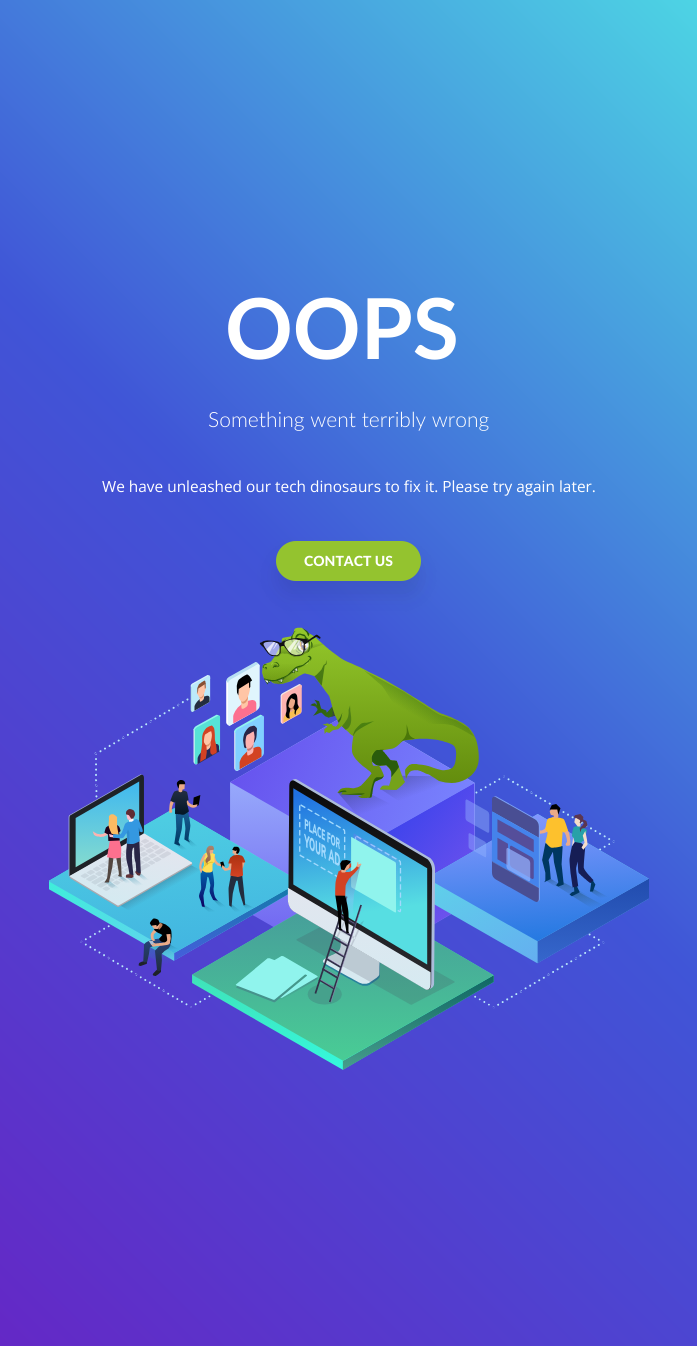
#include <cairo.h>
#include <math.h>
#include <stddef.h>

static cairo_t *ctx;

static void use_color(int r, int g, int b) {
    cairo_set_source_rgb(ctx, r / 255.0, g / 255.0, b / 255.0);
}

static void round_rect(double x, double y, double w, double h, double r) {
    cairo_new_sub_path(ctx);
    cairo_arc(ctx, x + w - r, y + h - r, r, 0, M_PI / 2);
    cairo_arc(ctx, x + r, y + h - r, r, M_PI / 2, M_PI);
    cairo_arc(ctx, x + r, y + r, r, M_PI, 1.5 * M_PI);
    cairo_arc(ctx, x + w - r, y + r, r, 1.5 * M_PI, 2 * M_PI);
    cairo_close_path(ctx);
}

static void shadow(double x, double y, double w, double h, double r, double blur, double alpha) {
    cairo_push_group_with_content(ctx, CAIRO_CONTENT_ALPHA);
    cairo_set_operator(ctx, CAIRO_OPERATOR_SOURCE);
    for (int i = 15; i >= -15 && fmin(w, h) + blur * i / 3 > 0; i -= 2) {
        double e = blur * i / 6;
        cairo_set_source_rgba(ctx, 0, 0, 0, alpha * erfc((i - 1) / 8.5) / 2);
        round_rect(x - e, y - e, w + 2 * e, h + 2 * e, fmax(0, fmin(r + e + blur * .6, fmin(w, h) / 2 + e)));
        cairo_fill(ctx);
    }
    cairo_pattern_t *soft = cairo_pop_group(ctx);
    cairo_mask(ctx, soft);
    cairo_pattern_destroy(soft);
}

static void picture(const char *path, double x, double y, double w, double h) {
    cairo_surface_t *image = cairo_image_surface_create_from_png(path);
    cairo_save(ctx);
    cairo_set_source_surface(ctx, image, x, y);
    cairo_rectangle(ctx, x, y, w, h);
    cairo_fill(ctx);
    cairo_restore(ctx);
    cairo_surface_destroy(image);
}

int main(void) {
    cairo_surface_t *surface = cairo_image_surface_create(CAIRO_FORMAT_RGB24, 697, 1346);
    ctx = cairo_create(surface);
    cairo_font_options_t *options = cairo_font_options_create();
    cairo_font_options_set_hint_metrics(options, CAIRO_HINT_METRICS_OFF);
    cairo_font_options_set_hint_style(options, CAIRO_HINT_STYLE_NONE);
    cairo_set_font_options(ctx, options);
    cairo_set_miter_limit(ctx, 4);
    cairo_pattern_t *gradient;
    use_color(255, 255, 255);
    cairo_paint(ctx);
    gradient = cairo_pattern_create_linear(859, 162, -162, 1184);
    cairo_pattern_add_color_stop_rgba(gradient, 0, 0.302, 0.831, 0.894, 1);
    cairo_pattern_add_color_stop_rgba(gradient, 0.48, 0.251, 0.333, 0.843, 1);
    cairo_pattern_add_color_stop_rgba(gradient, 1, 0.392, 0.157, 0.776, 1);
    cairo_set_source(ctx, gradient);
    cairo_pattern_destroy(gradient);
    cairo_rectangle(ctx, 0, 0, 697, 1346);
    cairo_fill(ctx);
    cairo_select_font_face(ctx, "Lato", CAIRO_FONT_SLANT_NORMAL, CAIRO_FONT_WEIGHT_BOLD);
    cairo_set_font_size(ctx, 84);
    use_color(255, 255, 255);
    cairo_move_to(ctx, 225, 359);
    cairo_show_text(ctx, "OOPS");
    cairo_select_font_face(ctx, "Lato Light", CAIRO_FONT_SLANT_NORMAL, CAIRO_FONT_WEIGHT_NORMAL);
    cairo_set_font_size(ctx, 21);
    cairo_move_to(ctx, 208, 427);
    cairo_show_text(ctx, "Something went terribly wrong");
    cairo_select_font_face(ctx, "Open Sans", CAIRO_FONT_SLANT_NORMAL, CAIRO_FONT_WEIGHT_NORMAL);
    cairo_set_font_size(ctx, 15.4);
    cairo_move_to(ctx, 102, 492);
    cairo_show_text(ctx, "We have unleashed our tech dinosaurs to fix it. Please try again later.");
    picture("img1.png", 49, 627, 600, 443);
    use_color(23, 24, 39);
    shadow(276, 556, 145, 40, 20, 10.5, 0.1);
    use_color(148, 195, 47);
    round_rect(276, 541, 145, 40, 20);
    cairo_fill(ctx);
    cairo_select_font_face(ctx, "Lato Black", CAIRO_FONT_SLANT_NORMAL, CAIRO_FONT_WEIGHT_NORMAL);
    cairo_set_font_size(ctx, 14);
    use_color(255, 255, 255);
    cairo_move_to(ctx, 304, 566);
    cairo_show_text(ctx, "CONTACT US");
    cairo_surface_write_to_png(surface, "result.png");
    cairo_font_options_destroy(options);
    cairo_destroy(ctx);
    cairo_surface_destroy(surface);
    return 0;
}
